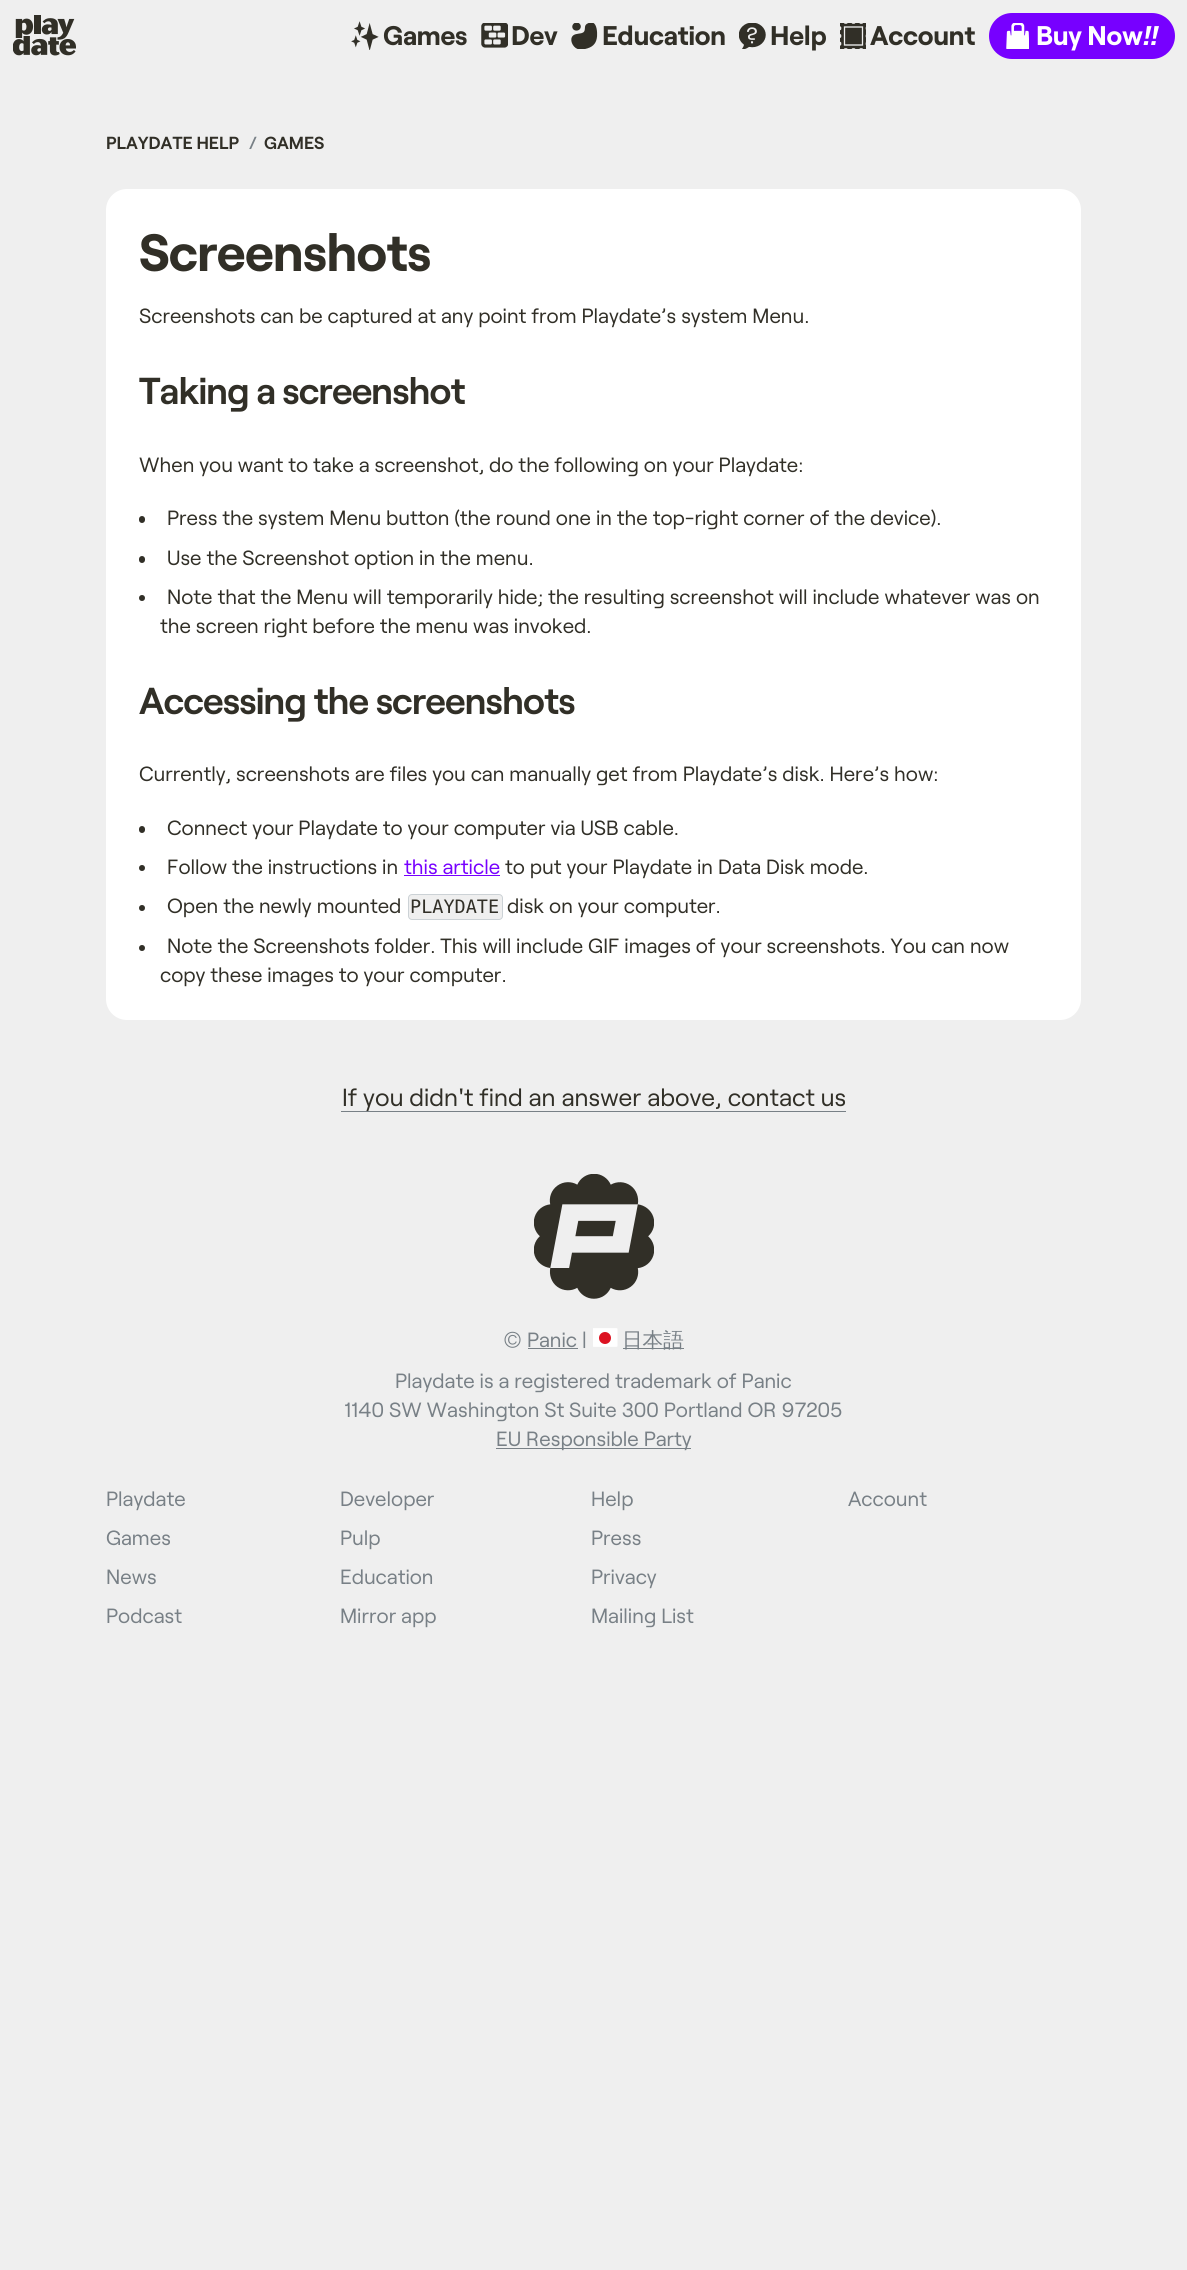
#include <cairo.h>
#include <math.h>
#include <stddef.h>

static cairo_t *ctx;

static void use_color(int r, int g, int b) {
    cairo_set_source_rgb(ctx, r / 255.0, g / 255.0, b / 255.0);
}

static void spaced_text(double x, double y, const char *s, double letter, double word) {
    cairo_move_to(ctx, x, y);
    while (*s) {
        char ch[5] = {0};
        int n = 0;
        do ch[n++] = *s++; while ((*s & 0xC0) == 0x80);
        cairo_show_text(ctx, ch);
        cairo_rel_move_to(ctx, letter + word * (*ch == ' '), 0);
    }
}

static void round_rect(double x, double y, double w, double h, double r) {
    cairo_new_sub_path(ctx);
    cairo_arc(ctx, x + w - r, y + h - r, r, 0, M_PI / 2);
    cairo_arc(ctx, x + r, y + h - r, r, M_PI / 2, M_PI);
    cairo_arc(ctx, x + r, y + r, r, M_PI, 1.5 * M_PI);
    cairo_arc(ctx, x + w - r, y + r, r, 1.5 * M_PI, 2 * M_PI);
    cairo_close_path(ctx);
}

static void picture(const char *path, double x, double y, double w, double h) {
    cairo_surface_t *image = cairo_image_surface_create_from_png(path);
    cairo_save(ctx);
    cairo_set_source_surface(ctx, image, x, y);
    cairo_rectangle(ctx, x, y, w, h);
    cairo_fill(ctx);
    cairo_restore(ctx);
    cairo_surface_destroy(image);
}

int main(void) {
    cairo_surface_t *surface = cairo_image_surface_create(CAIRO_FORMAT_RGB24, 1187, 2270);
    ctx = cairo_create(surface);
    cairo_font_options_t *options = cairo_font_options_create();
    cairo_font_options_set_hint_metrics(options, CAIRO_HINT_METRICS_OFF);
    cairo_font_options_set_hint_style(options, CAIRO_HINT_STYLE_NONE);
    cairo_set_font_options(ctx, options);
    cairo_set_miter_limit(ctx, 4);
    use_color(239, 239, 239);
    cairo_paint(ctx);
    picture("img1.png", 13, 15, 63, 41);
    picture("img2.png", 351, 21, 28, 29);
    cairo_select_font_face(ctx, "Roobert", CAIRO_FONT_SLANT_NORMAL, CAIRO_FONT_WEIGHT_BOLD);
    cairo_set_font_size(ctx, 27);
    use_color(49, 47, 39);
    spaced_text(383, 45, "Games", -0.25, 0);
    picture("img3.png", 481, 23, 27, 25);
    spaced_text(511, 45, "Dev", -0.25, 0);
    picture("img4.png", 571, 23, 27, 26);
    spaced_text(602, 45, "Education", -0.25, 0);
    picture("img5.png", 739, 23, 27, 26);
    spaced_text(770, 45, "Help", -0.25, 0);
    picture("img6.png", 840, 23, 26, 26);
    spaced_text(870, 45, "Account", -0.25, 0);
    use_color(119, 0, 255);
    round_rect(989, 13, 186, 46, 23);
    cairo_fill(ctx);
    picture("img7.png", 1006, 23, 23, 26);
    use_color(255, 255, 255);
    spaced_text(1036, 45, "Buy Now", -0.25, 0);
    cairo_select_font_face(ctx, "Roobert", CAIRO_FONT_SLANT_ITALIC, CAIRO_FONT_WEIGHT_BOLD);
    spaced_text(1143, 45, "!!", -0.25, 0);
    cairo_select_font_face(ctx, "Roobert SemiBold", CAIRO_FONT_SLANT_NORMAL, CAIRO_FONT_WEIGHT_NORMAL);
    cairo_set_font_size(ctx, 17.5);
    use_color(49, 47, 39);
    cairo_move_to(ctx, 106, 149);
    cairo_show_text(ctx, "PLAYDATE HELP");
    use_color(120, 128, 134);
    cairo_move_to(ctx, 249, 149);
    cairo_show_text(ctx, "/");
    use_color(49, 47, 39);
    cairo_move_to(ctx, 264, 149);
    cairo_show_text(ctx, "GAMES");
    use_color(255, 255, 255);
    round_rect(106, 189, 975, 831, 21);
    cairo_fill(ctx);
    cairo_select_font_face(ctx, "Roobert", CAIRO_FONT_SLANT_NORMAL, CAIRO_FONT_WEIGHT_BOLD);
    cairo_set_font_size(ctx, 52.5);
    use_color(49, 47, 39);
    spaced_text(139, 271, "Screenshots", -0.75, 0);
    cairo_select_font_face(ctx, "Roobert", CAIRO_FONT_SLANT_NORMAL, CAIRO_FONT_WEIGHT_NORMAL);
    cairo_set_font_size(ctx, 20.6);
    cairo_move_to(ctx, 139, 323);
    cairo_show_text(ctx, "Screenshots can be captured at any point from Playdate’s system Menu.");
    cairo_select_font_face(ctx, "Roobert SemiBold", CAIRO_FONT_SLANT_NORMAL, CAIRO_FONT_WEIGHT_NORMAL);
    cairo_set_font_size(ctx, 37.5);
    spaced_text(139, 404, "Taking a screenshot", -0.9, 0);
    cairo_select_font_face(ctx, "Roobert", CAIRO_FONT_SLANT_NORMAL, CAIRO_FONT_WEIGHT_NORMAL);
    cairo_set_font_size(ctx, 20.6);
    cairo_move_to(ctx, 139, 472);
    cairo_show_text(ctx, "When you want to take a screenshot, do the following on your Playdate:");
    round_rect(139, 516, 6, 7, 3);
    cairo_fill(ctx);
    cairo_move_to(ctx, 167, 525);
    cairo_show_text(ctx, "Press the system Menu button (the round one in the top-right corner of the device).");
    round_rect(139, 556, 6, 7, 3);
    cairo_fill(ctx);
    cairo_move_to(ctx, 167, 565);
    cairo_show_text(ctx, "Use the Screenshot option in the menu.");
    cairo_new_path(ctx);
    cairo_arc(ctx, 142, 598, 3, 0, 2 * M_PI);
    cairo_fill(ctx);
    cairo_move_to(ctx, 167, 604);
    cairo_show_text(ctx, "Note that the Menu will temporarily hide; the resulting screenshot will include whatever was on");
    cairo_move_to(ctx, 160, 633);
    cairo_show_text(ctx, "the screen right before the menu was invoked.");
    cairo_select_font_face(ctx, "Roobert SemiBold", CAIRO_FONT_SLANT_NORMAL, CAIRO_FONT_WEIGHT_NORMAL);
    cairo_set_font_size(ctx, 37.5);
    spaced_text(139, 714, "Accessing the screenshots", -0.9, 0);
    cairo_select_font_face(ctx, "Roobert", CAIRO_FONT_SLANT_NORMAL, CAIRO_FONT_WEIGHT_NORMAL);
    cairo_set_font_size(ctx, 20.6);
    cairo_move_to(ctx, 139, 781);
    cairo_show_text(ctx, "Currently, screenshots are files you can manually get from Playdate’s disk. Here’s how:");
    round_rect(139, 826, 6, 7, 3);
    cairo_fill(ctx);
    cairo_move_to(ctx, 167, 835);
    cairo_show_text(ctx, "Connect your Playdate to your computer via USB cable.");
    cairo_new_path(ctx);
    cairo_arc(ctx, 142, 868, 3, 0, 2 * M_PI);
    cairo_fill(ctx);
    cairo_move_to(ctx, 167, 874);
    cairo_show_text(ctx, "Follow the instructions in");
    use_color(119, 0, 255);
    cairo_move_to(ctx, 404, 874);
    cairo_show_text(ctx, "this article");
    cairo_rectangle(ctx, 404, 875, 96, 1);
    cairo_fill(ctx);
    use_color(49, 47, 39);
    cairo_move_to(ctx, 505, 874);
    cairo_show_text(ctx, "to put your Playdate in Data Disk mode.");
    cairo_new_path(ctx);
    cairo_arc(ctx, 142, 908, 3, 0, 2 * M_PI);
    cairo_fill(ctx);
    cairo_move_to(ctx, 167, 913);
    cairo_show_text(ctx, "Open the newly mounted");
    use_color(239, 239, 239);
    round_rect(408.5, 894.5, 94, 25, 3.5);
    cairo_fill_preserve(ctx);
    use_color(204, 210, 214);
    cairo_set_line_width(ctx, 1);
    cairo_stroke(ctx);
    cairo_select_font_face(ctx, "DejaVu Sans Mono", CAIRO_FONT_SLANT_NORMAL, CAIRO_FONT_WEIGHT_NORMAL);
    cairo_set_font_size(ctx, 18.5);
    use_color(49, 47, 39);
    cairo_move_to(ctx, 410, 913);
    cairo_show_text(ctx, "PLAYDATE");
    cairo_select_font_face(ctx, "Roobert", CAIRO_FONT_SLANT_NORMAL, CAIRO_FONT_WEIGHT_NORMAL);
    cairo_set_font_size(ctx, 20.6);
    cairo_move_to(ctx, 507, 913);
    cairo_show_text(ctx, "disk on your computer.");
    cairo_new_path(ctx);
    cairo_arc(ctx, 142, 948, 3, 0, 2 * M_PI);
    cairo_fill(ctx);
    cairo_move_to(ctx, 167, 953);
    cairo_show_text(ctx, "Note the Screenshots folder. This will include GIF images of your screenshots. You can now");
    cairo_move_to(ctx, 160, 982);
    cairo_show_text(ctx, "copy these images to your computer.");
    use_color(120, 128, 134);
    cairo_rectangle(ctx, 341, 1111, 505, 1);
    cairo_fill(ctx);
    cairo_set_font_size(ctx, 24.75);
    use_color(49, 47, 39);
    cairo_move_to(ctx, 342, 1106);
    cairo_show_text(ctx, "If you didn't find an answer above, contact us");
    picture("img8.png", 534, 1174, 120, 125);
    cairo_set_font_size(ctx, 20.6);
    use_color(120, 128, 134);
    cairo_move_to(ctx, 503, 1347);
    cairo_show_text(ctx, "© Panic |");
    picture("img9.png", 593, 1328, 25, 19);
    cairo_rectangle(ctx, 623, 1348, 61, 1);
    cairo_fill(ctx);
    cairo_select_font_face(ctx, "WenQuanYi Zen Hei Medium", CAIRO_FONT_SLANT_NORMAL, CAIRO_FONT_WEIGHT_NORMAL);
    cairo_move_to(ctx, 622, 1347);
    cairo_show_text(ctx, "日本語");
    cairo_rectangle(ctx, 528, 1348, 50, 1);
    cairo_fill(ctx);
    cairo_select_font_face(ctx, "Roobert", CAIRO_FONT_SLANT_NORMAL, CAIRO_FONT_WEIGHT_NORMAL);
    cairo_move_to(ctx, 395, 1388);
    cairo_show_text(ctx, "Playdate is a registered trademark of Panic");
    cairo_move_to(ctx, 344, 1417);
    cairo_show_text(ctx, "1140 SW Washington St Suite 300 Portland OR 97205");
    cairo_rectangle(ctx, 496, 1448, 195, 1);
    cairo_fill(ctx);
    cairo_move_to(ctx, 496, 1446);
    cairo_show_text(ctx, "EU Responsible Party");
    cairo_move_to(ctx, 106, 1506);
    cairo_show_text(ctx, "Playdate");
    cairo_move_to(ctx, 106, 1545);
    cairo_show_text(ctx, "Games");
    cairo_move_to(ctx, 106, 1584);
    cairo_show_text(ctx, "News");
    cairo_move_to(ctx, 106, 1623);
    cairo_show_text(ctx, "Podcast");
    cairo_move_to(ctx, 340, 1506);
    cairo_show_text(ctx, "Developer");
    cairo_move_to(ctx, 340, 1545);
    cairo_show_text(ctx, "Pulp");
    cairo_move_to(ctx, 340, 1584);
    cairo_show_text(ctx, "Education");
    cairo_move_to(ctx, 340, 1623);
    cairo_show_text(ctx, "Mirror app");
    cairo_move_to(ctx, 591, 1506);
    cairo_show_text(ctx, "Help");
    cairo_move_to(ctx, 591, 1545);
    cairo_show_text(ctx, "Press");
    cairo_move_to(ctx, 591, 1584);
    cairo_show_text(ctx, "Privacy");
    cairo_move_to(ctx, 591, 1623);
    cairo_show_text(ctx, "Mailing List");
    cairo_move_to(ctx, 848, 1506);
    cairo_show_text(ctx, "Account");
    cairo_surface_write_to_png(surface, "result.png");
    cairo_font_options_destroy(options);
    cairo_destroy(ctx);
    cairo_surface_destroy(surface);
    return 0;
}
